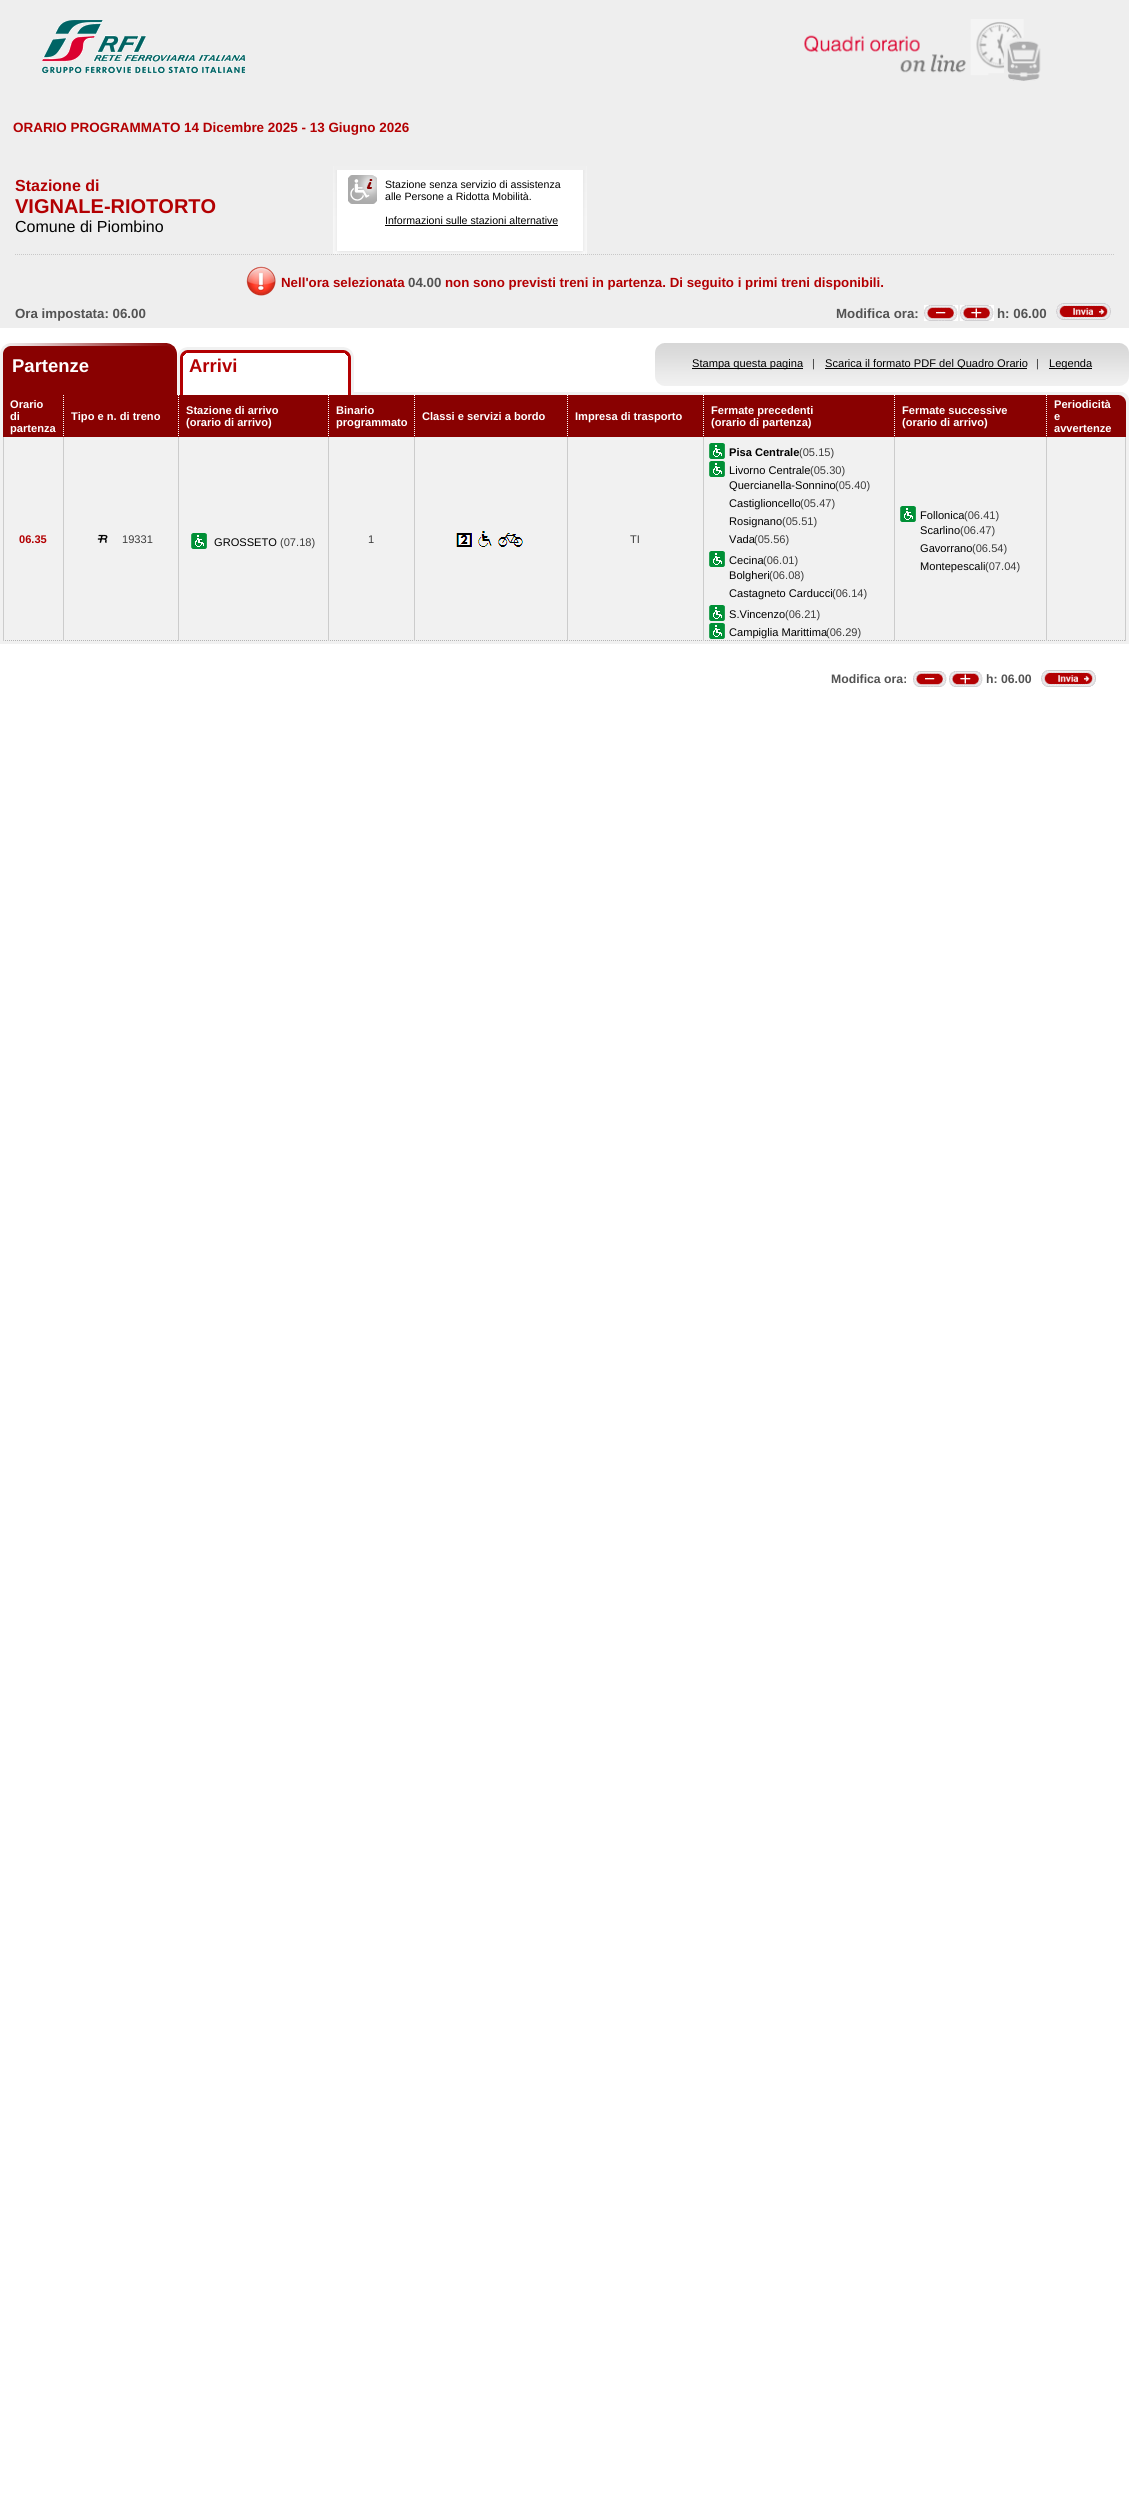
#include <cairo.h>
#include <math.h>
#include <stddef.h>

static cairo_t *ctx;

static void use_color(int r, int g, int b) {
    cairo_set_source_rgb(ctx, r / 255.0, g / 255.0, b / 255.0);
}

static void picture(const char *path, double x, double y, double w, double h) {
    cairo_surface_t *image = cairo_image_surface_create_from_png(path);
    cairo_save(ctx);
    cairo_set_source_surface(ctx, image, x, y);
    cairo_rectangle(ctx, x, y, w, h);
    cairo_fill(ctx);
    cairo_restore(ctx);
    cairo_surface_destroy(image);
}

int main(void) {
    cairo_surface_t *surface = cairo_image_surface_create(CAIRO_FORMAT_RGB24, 1129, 2498);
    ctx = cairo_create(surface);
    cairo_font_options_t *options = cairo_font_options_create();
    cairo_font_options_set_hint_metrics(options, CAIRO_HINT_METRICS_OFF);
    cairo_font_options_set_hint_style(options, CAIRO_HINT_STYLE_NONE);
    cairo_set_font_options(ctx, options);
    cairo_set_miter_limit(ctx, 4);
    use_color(255, 255, 255);
    cairo_paint(ctx);
    use_color(238, 238, 238);
    cairo_rectangle(ctx, 0, 0, 1129, 328);
    cairo_fill(ctx);
    picture("img1.png", 42, 20, 203, 53);
    picture("img2.png", 804, 19, 237, 62);
    cairo_select_font_face(ctx, "Liberation Sans", CAIRO_FONT_SLANT_NORMAL, CAIRO_FONT_WEIGHT_BOLD);
    cairo_set_font_size(ctx, 13.45);
    use_color(179, 0, 2);
    cairo_move_to(ctx, 13, 132);
    cairo_show_text(ctx, "ORARIO PROGRAMMATO 14 Dicembre 2025 - 13 Giugno 2026");
    cairo_new_path(ctx);
    cairo_move_to(ctx, 15, 254.5);
    cairo_line_to(ctx, 1114, 254.5);
    use_color(200, 200, 200);
    cairo_set_line_width(ctx, 1);
    cairo_set_dash(ctx, (double[]){1, 1}, 2, 0);
    cairo_stroke(ctx);
    cairo_set_font_size(ctx, 16);
    use_color(179, 0, 2);
    cairo_move_to(ctx, 15, 191);
    cairo_show_text(ctx, "Stazione di");
    cairo_set_font_size(ctx, 20);
    cairo_move_to(ctx, 15, 213);
    cairo_show_text(ctx, "VIGNALE-RIOTORTO");
    cairo_select_font_face(ctx, "Liberation Sans", CAIRO_FONT_SLANT_NORMAL, CAIRO_FONT_WEIGHT_NORMAL);
    cairo_set_font_size(ctx, 16);
    use_color(0, 0, 0);
    cairo_move_to(ctx, 15, 232);
    cairo_show_text(ctx, "Comune di Piombino");
    picture("img3.png", 333, 166, 254, 88);
    use_color(239, 239, 239);
    cairo_rectangle(ctx, 335, 166, 250, 4);
    cairo_fill(ctx);
    picture("img4.png", 335, 251, 250, 3);
    picture("img5.png", 348, 175, 29, 29);
    cairo_set_font_size(ctx, 10.6);
    use_color(0, 0, 0);
    cairo_move_to(ctx, 385, 188);
    cairo_show_text(ctx, "Stazione senza servizio di assistenza");
    cairo_move_to(ctx, 385, 200);
    cairo_show_text(ctx, "alle Persone a Ridotta Mobilità.");
    cairo_move_to(ctx, 385, 224);
    cairo_show_text(ctx, "Informazioni sulle stazioni alternative");
    cairo_rectangle(ctx, 385, 225, 173, 1);
    cairo_fill(ctx);
    picture("img6.png", 246, 266, 30, 30);
    cairo_select_font_face(ctx, "Liberation Sans", CAIRO_FONT_SLANT_NORMAL, CAIRO_FONT_WEIGHT_BOLD);
    cairo_set_font_size(ctx, 13.3);
    use_color(179, 0, 2);
    cairo_move_to(ctx, 281, 287);
    cairo_show_text(ctx, "Nell'ora selezionata");
    use_color(83, 83, 83);
    cairo_move_to(ctx, 408, 287);
    cairo_show_text(ctx, "04.00");
    use_color(179, 0, 2);
    cairo_move_to(ctx, 445, 287);
    cairo_show_text(ctx, "non sono previsti treni in partenza. Di seguito i primi treni disponibili.");
    use_color(83, 83, 83);
    cairo_move_to(ctx, 15, 318);
    cairo_show_text(ctx, "Ora impostata: 06.00");
    cairo_move_to(ctx, 836, 318);
    cairo_show_text(ctx, "Modifica ora:");
    picture("img7.png", 924, 305, 34, 16);
    picture("img8.png", 960, 305, 34, 16);
    cairo_move_to(ctx, 997, 318);
    cairo_show_text(ctx, "h: 06.00");
    picture("img9.png", 1056, 303, 55, 17);
    use_color(241, 241, 241);
    cairo_rectangle(ctx, 354, 392, 775, 3);
    cairo_fill(ctx);
    picture("img10.png", 1123, 392, 6, 3);
    picture("img11.png", 0, 343, 177, 52);
    cairo_set_font_size(ctx, 18.5);
    use_color(255, 255, 255);
    cairo_move_to(ctx, 12, 372);
    cairo_show_text(ctx, "Partenze");
    picture("img12.png", 177, 347, 177, 48);
    use_color(179, 0, 2);
    cairo_move_to(ctx, 189, 372);
    cairo_show_text(ctx, "Arrivi");
    picture("img13.png", 655, 343, 474, 34);
    use_color(0, 0, 0);
    cairo_rectangle(ctx, 692, 368, 111, 1);
    cairo_fill(ctx);
    cairo_select_font_face(ctx, "Liberation Sans", CAIRO_FONT_SLANT_NORMAL, CAIRO_FONT_WEIGHT_NORMAL);
    cairo_set_font_size(ctx, 11.1);
    cairo_move_to(ctx, 692, 367);
    cairo_show_text(ctx, "Stampa questa pagina");
    use_color(60, 60, 60);
    cairo_move_to(ctx, 812, 367);
    cairo_show_text(ctx, "|");
    use_color(0, 0, 0);
    cairo_rectangle(ctx, 825, 368, 202, 1);
    cairo_fill(ctx);
    cairo_move_to(ctx, 825, 367);
    cairo_show_text(ctx, "Scarica il formato PDF del Quadro Orario");
    use_color(60, 60, 60);
    cairo_move_to(ctx, 1036, 367);
    cairo_show_text(ctx, "|");
    use_color(0, 0, 0);
    cairo_rectangle(ctx, 1049, 368, 43, 1);
    cairo_fill(ctx);
    cairo_move_to(ctx, 1049, 367);
    cairo_show_text(ctx, "Legenda");
    picture("img14.png", 655, 377, 474, 9);
    use_color(241, 241, 241);
    cairo_rectangle(ctx, 0, 395, 1129, 249);
    cairo_fill(ctx);
    picture("img15.png", 1127, 395, 2, 3);
    use_color(137, 1, 1);
    cairo_rectangle(ctx, 3, 395, 1123, 42);
    cairo_fill(ctx);
    cairo_new_path(ctx);
    cairo_move_to(ctx, 63.5, 395);
    cairo_line_to(ctx, 63.5, 437);
    use_color(255, 255, 255);
    cairo_stroke(ctx);
    cairo_select_font_face(ctx, "Liberation Sans", CAIRO_FONT_SLANT_NORMAL, CAIRO_FONT_WEIGHT_BOLD);
    cairo_move_to(ctx, 10, 408);
    cairo_show_text(ctx, "Orario");
    cairo_move_to(ctx, 10, 420);
    cairo_show_text(ctx, "di");
    cairo_move_to(ctx, 10, 432);
    cairo_show_text(ctx, "partenza");
    cairo_new_path(ctx);
    cairo_move_to(ctx, 178.5, 395);
    cairo_line_to(ctx, 178.5, 437);
    cairo_stroke(ctx);
    cairo_move_to(ctx, 71, 420);
    cairo_show_text(ctx, "Tipo e n. di treno");
    cairo_new_path(ctx);
    cairo_move_to(ctx, 328.5, 395);
    cairo_line_to(ctx, 328.5, 437);
    cairo_stroke(ctx);
    cairo_move_to(ctx, 186, 414);
    cairo_show_text(ctx, "Stazione di arrivo");
    cairo_move_to(ctx, 186, 426);
    cairo_show_text(ctx, "(orario di arrivo)");
    cairo_new_path(ctx);
    cairo_move_to(ctx, 414.5, 395);
    cairo_line_to(ctx, 414.5, 437);
    cairo_stroke(ctx);
    cairo_move_to(ctx, 336, 414);
    cairo_show_text(ctx, "Binario");
    cairo_move_to(ctx, 336, 426);
    cairo_show_text(ctx, "programmato");
    cairo_new_path(ctx);
    cairo_move_to(ctx, 567.5, 395);
    cairo_line_to(ctx, 567.5, 437);
    cairo_stroke(ctx);
    cairo_move_to(ctx, 422, 420);
    cairo_show_text(ctx, "Classi e servizi a bordo");
    cairo_new_path(ctx);
    cairo_move_to(ctx, 703.5, 395);
    cairo_line_to(ctx, 703.5, 437);
    cairo_stroke(ctx);
    cairo_move_to(ctx, 575, 420);
    cairo_show_text(ctx, "Impresa di trasporto");
    cairo_new_path(ctx);
    cairo_move_to(ctx, 894.5, 395);
    cairo_line_to(ctx, 894.5, 437);
    cairo_stroke(ctx);
    cairo_move_to(ctx, 711, 414);
    cairo_show_text(ctx, "Fermate precedenti");
    cairo_move_to(ctx, 711, 426);
    cairo_show_text(ctx, "(orario di partenza)");
    cairo_new_path(ctx);
    cairo_move_to(ctx, 1046.5, 395);
    cairo_line_to(ctx, 1046.5, 437);
    cairo_stroke(ctx);
    cairo_move_to(ctx, 902, 414);
    cairo_show_text(ctx, "Fermate successive");
    cairo_move_to(ctx, 902, 426);
    cairo_show_text(ctx, "(orario di arrivo)");
    picture("img16.png", 1119, 395, 7, 8);
    cairo_move_to(ctx, 1054, 408);
    cairo_show_text(ctx, "Periodicità");
    cairo_move_to(ctx, 1054, 420);
    cairo_show_text(ctx, "e");
    cairo_move_to(ctx, 1054, 432);
    cairo_show_text(ctx, "avvertenze");
    picture("img17.png", 5, 640, 57, 1);
    use_color(204, 204, 204);
    cairo_rectangle(ctx, 63, 437, 1, 204);
    cairo_fill(ctx);
    cairo_rectangle(ctx, 3, 437, 1, 204);
    cairo_fill(ctx);
    use_color(179, 0, 2);
    cairo_move_to(ctx, 19, 543);
    cairo_show_text(ctx, "06.35");
    picture("img18.png", 65, 640, 113, 1);
    use_color(204, 204, 204);
    cairo_rectangle(ctx, 178, 437, 1, 204);
    cairo_fill(ctx);
    picture("img19.png", 97, 534, 11, 9);
    cairo_select_font_face(ctx, "Liberation Sans", CAIRO_FONT_SLANT_NORMAL, CAIRO_FONT_WEIGHT_NORMAL);
    use_color(60, 60, 60);
    cairo_move_to(ctx, 122, 543);
    cairo_show_text(ctx, "19331");
    picture("img20.png", 180, 640, 147, 1);
    use_color(204, 204, 204);
    cairo_rectangle(ctx, 328, 437, 1, 204);
    cairo_fill(ctx);
    picture("img21.png", 191, 533, 16, 16);
    use_color(0, 0, 0);
    cairo_move_to(ctx, 214, 546);
    cairo_show_text(ctx, "GROSSETO");
    use_color(60, 60, 60);
    cairo_move_to(ctx, 280, 546);
    cairo_show_text(ctx, "(07.18)");
    picture("img22.png", 330, 640, 83, 1);
    use_color(204, 204, 204);
    cairo_rectangle(ctx, 414, 437, 1, 204);
    cairo_fill(ctx);
    use_color(60, 60, 60);
    cairo_move_to(ctx, 368, 543);
    cairo_show_text(ctx, "1");
    picture("img23.png", 416, 640, 151, 1);
    use_color(204, 204, 204);
    cairo_rectangle(ctx, 567, 437, 1, 204);
    cairo_fill(ctx);
    picture("img24.png", 456, 533, 16, 14);
    picture("img25.png", 478, 531, 14, 16);
    picture("img26.png", 498, 533, 25, 14);
    picture("img27.png", 569, 640, 133, 1);
    cairo_rectangle(ctx, 703, 437, 1, 204);
    cairo_fill(ctx);
    use_color(60, 60, 60);
    cairo_move_to(ctx, 630, 543);
    cairo_show_text(ctx, "TI");
    picture("img28.png", 705, 640, 189, 1);
    use_color(204, 204, 204);
    cairo_rectangle(ctx, 894, 437, 1, 204);
    cairo_fill(ctx);
    picture("img21.png", 709, 443, 16, 16);
    cairo_select_font_face(ctx, "Liberation Sans", CAIRO_FONT_SLANT_NORMAL, CAIRO_FONT_WEIGHT_BOLD);
    use_color(0, 0, 0);
    cairo_move_to(ctx, 729, 456);
    cairo_show_text(ctx, "Pisa Centrale");
    cairo_select_font_face(ctx, "Liberation Sans", CAIRO_FONT_SLANT_NORMAL, CAIRO_FONT_WEIGHT_NORMAL);
    use_color(60, 60, 60);
    cairo_move_to(ctx, 799, 456);
    cairo_show_text(ctx, "(05.15)");
    picture("img21.png", 709, 461, 16, 16);
    use_color(0, 0, 0);
    cairo_move_to(ctx, 729, 474);
    cairo_show_text(ctx, "Livorno Centrale");
    use_color(60, 60, 60);
    cairo_move_to(ctx, 810, 474);
    cairo_show_text(ctx, "(05.30)");
    use_color(0, 0, 0);
    cairo_move_to(ctx, 729, 489);
    cairo_show_text(ctx, "Quercianella-Sonnino");
    use_color(60, 60, 60);
    cairo_move_to(ctx, 835, 489);
    cairo_show_text(ctx, "(05.40)");
    use_color(0, 0, 0);
    cairo_move_to(ctx, 729, 507);
    cairo_show_text(ctx, "Castiglioncello");
    use_color(60, 60, 60);
    cairo_move_to(ctx, 800, 507);
    cairo_show_text(ctx, "(05.47)");
    use_color(0, 0, 0);
    cairo_move_to(ctx, 729, 525);
    cairo_show_text(ctx, "Rosignano");
    use_color(60, 60, 60);
    cairo_move_to(ctx, 782, 525);
    cairo_show_text(ctx, "(05.51)");
    use_color(0, 0, 0);
    cairo_move_to(ctx, 729, 543);
    cairo_show_text(ctx, "Vada");
    use_color(60, 60, 60);
    cairo_move_to(ctx, 754, 543);
    cairo_show_text(ctx, "(05.56)");
    picture("img21.png", 709, 551, 16, 16);
    use_color(0, 0, 0);
    cairo_move_to(ctx, 729, 564);
    cairo_show_text(ctx, "Cecina");
    use_color(60, 60, 60);
    cairo_move_to(ctx, 763, 564);
    cairo_show_text(ctx, "(06.01)");
    use_color(0, 0, 0);
    cairo_move_to(ctx, 729, 579);
    cairo_show_text(ctx, "Bolgheri");
    use_color(60, 60, 60);
    cairo_move_to(ctx, 769, 579);
    cairo_show_text(ctx, "(06.08)");
    use_color(0, 0, 0);
    cairo_move_to(ctx, 729, 597);
    cairo_show_text(ctx, "Castagneto Carducci");
    use_color(60, 60, 60);
    cairo_move_to(ctx, 832, 597);
    cairo_show_text(ctx, "(06.14)");
    picture("img21.png", 709, 605, 16, 16);
    use_color(0, 0, 0);
    cairo_move_to(ctx, 729, 618);
    cairo_show_text(ctx, "S.Vincenzo");
    use_color(60, 60, 60);
    cairo_move_to(ctx, 785, 618);
    cairo_show_text(ctx, "(06.21)");
    picture("img21.png", 709, 623, 16, 16);
    use_color(0, 0, 0);
    cairo_move_to(ctx, 729, 636);
    cairo_show_text(ctx, "Campiglia Marittima");
    use_color(60, 60, 60);
    cairo_move_to(ctx, 826, 636);
    cairo_show_text(ctx, "(06.29)");
    picture("img29.png", 896, 640, 149, 1);
    use_color(204, 204, 204);
    cairo_rectangle(ctx, 1046, 437, 1, 204);
    cairo_fill(ctx);
    picture("img21.png", 900, 506, 16, 16);
    use_color(0, 0, 0);
    cairo_move_to(ctx, 920, 519);
    cairo_show_text(ctx, "Follonica");
    use_color(60, 60, 60);
    cairo_move_to(ctx, 964, 519);
    cairo_show_text(ctx, "(06.41)");
    use_color(0, 0, 0);
    cairo_move_to(ctx, 920, 534);
    cairo_show_text(ctx, "Scarlino");
    use_color(60, 60, 60);
    cairo_move_to(ctx, 960, 534);
    cairo_show_text(ctx, "(06.47)");
    use_color(0, 0, 0);
    cairo_move_to(ctx, 920, 552);
    cairo_show_text(ctx, "Gavorrano");
    use_color(60, 60, 60);
    cairo_move_to(ctx, 972, 552);
    cairo_show_text(ctx, "(06.54)");
    use_color(0, 0, 0);
    cairo_move_to(ctx, 920, 570);
    cairo_show_text(ctx, "Montepescali");
    use_color(60, 60, 60);
    cairo_move_to(ctx, 985, 570);
    cairo_show_text(ctx, "(07.04)");
    picture("img30.png", 1048, 640, 77, 1);
    use_color(204, 204, 204);
    cairo_rectangle(ctx, 1125, 437, 1, 204);
    cairo_fill(ctx);
    cairo_select_font_face(ctx, "Liberation Sans", CAIRO_FONT_SLANT_NORMAL, CAIRO_FONT_WEIGHT_BOLD);
    cairo_set_font_size(ctx, 12.25);
    use_color(83, 83, 83);
    cairo_move_to(ctx, 831, 683);
    cairo_show_text(ctx, "Modifica ora:");
    picture("img7.png", 913, 671, 34, 16);
    picture("img8.png", 949, 671, 34, 16);
    cairo_move_to(ctx, 986, 683);
    cairo_show_text(ctx, "h: 06.00");
    picture("img31.png", 1041, 670, 55, 17);
    cairo_surface_write_to_png(surface, "result.png");
    cairo_font_options_destroy(options);
    cairo_destroy(ctx);
    cairo_surface_destroy(surface);
    return 0;
}
